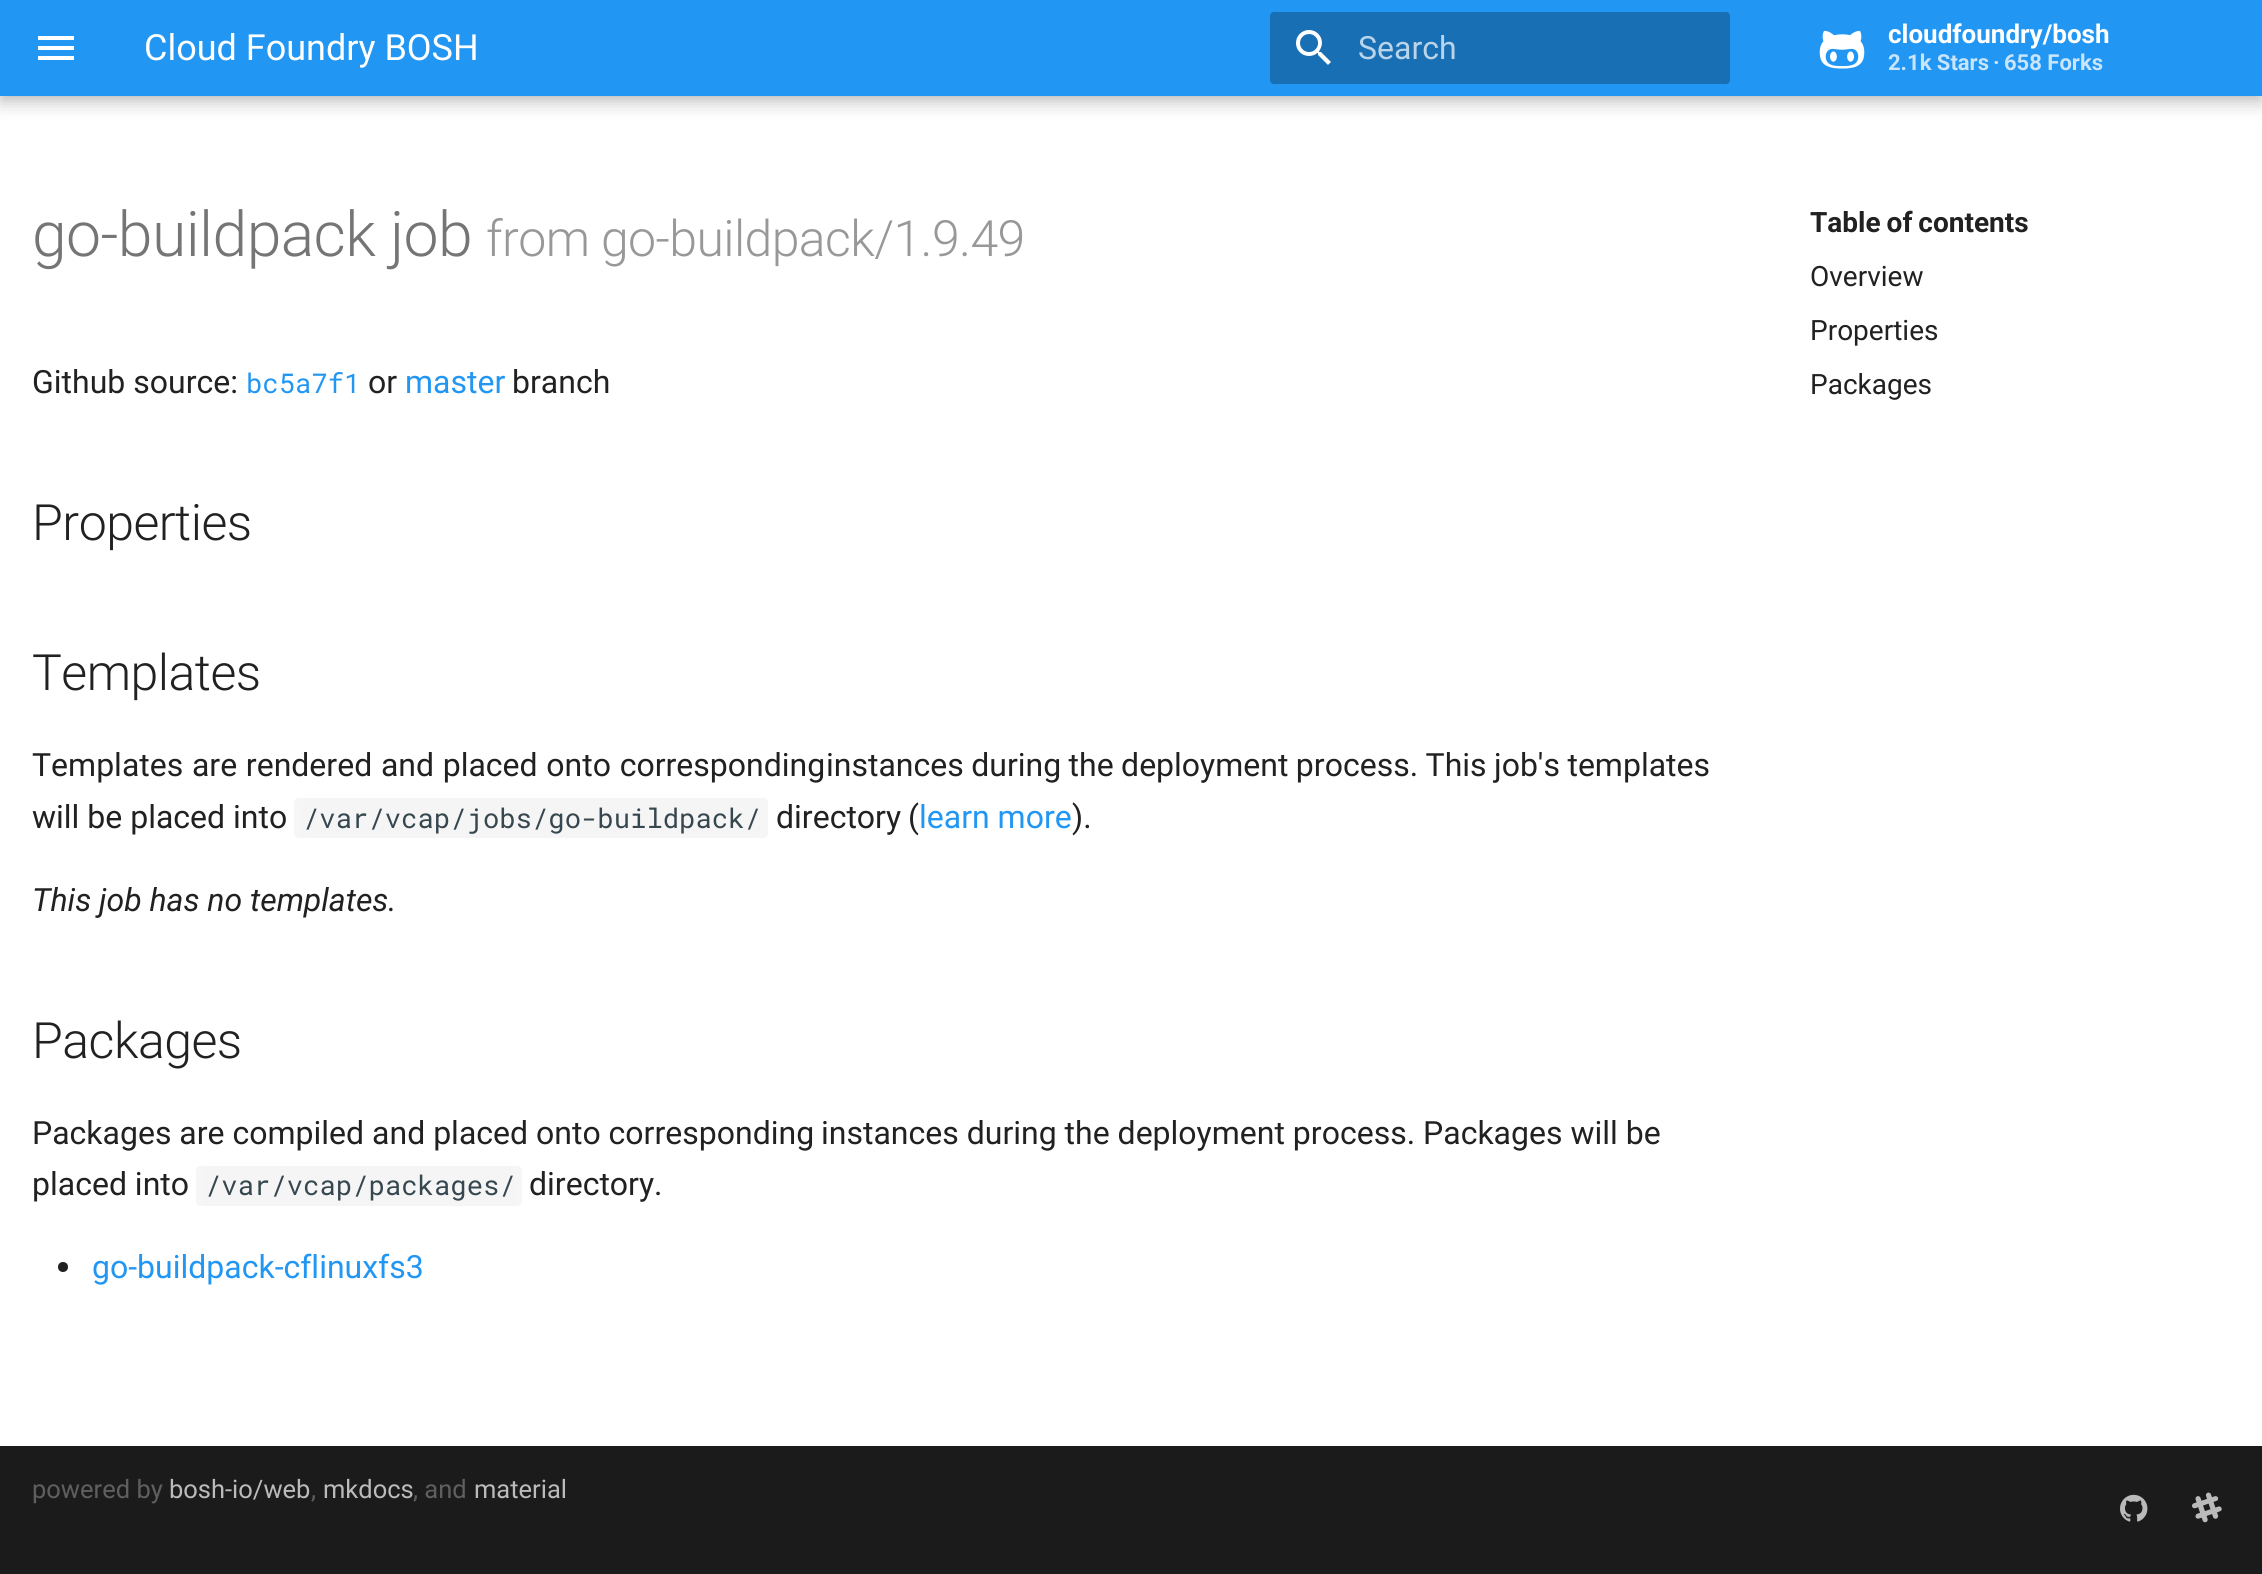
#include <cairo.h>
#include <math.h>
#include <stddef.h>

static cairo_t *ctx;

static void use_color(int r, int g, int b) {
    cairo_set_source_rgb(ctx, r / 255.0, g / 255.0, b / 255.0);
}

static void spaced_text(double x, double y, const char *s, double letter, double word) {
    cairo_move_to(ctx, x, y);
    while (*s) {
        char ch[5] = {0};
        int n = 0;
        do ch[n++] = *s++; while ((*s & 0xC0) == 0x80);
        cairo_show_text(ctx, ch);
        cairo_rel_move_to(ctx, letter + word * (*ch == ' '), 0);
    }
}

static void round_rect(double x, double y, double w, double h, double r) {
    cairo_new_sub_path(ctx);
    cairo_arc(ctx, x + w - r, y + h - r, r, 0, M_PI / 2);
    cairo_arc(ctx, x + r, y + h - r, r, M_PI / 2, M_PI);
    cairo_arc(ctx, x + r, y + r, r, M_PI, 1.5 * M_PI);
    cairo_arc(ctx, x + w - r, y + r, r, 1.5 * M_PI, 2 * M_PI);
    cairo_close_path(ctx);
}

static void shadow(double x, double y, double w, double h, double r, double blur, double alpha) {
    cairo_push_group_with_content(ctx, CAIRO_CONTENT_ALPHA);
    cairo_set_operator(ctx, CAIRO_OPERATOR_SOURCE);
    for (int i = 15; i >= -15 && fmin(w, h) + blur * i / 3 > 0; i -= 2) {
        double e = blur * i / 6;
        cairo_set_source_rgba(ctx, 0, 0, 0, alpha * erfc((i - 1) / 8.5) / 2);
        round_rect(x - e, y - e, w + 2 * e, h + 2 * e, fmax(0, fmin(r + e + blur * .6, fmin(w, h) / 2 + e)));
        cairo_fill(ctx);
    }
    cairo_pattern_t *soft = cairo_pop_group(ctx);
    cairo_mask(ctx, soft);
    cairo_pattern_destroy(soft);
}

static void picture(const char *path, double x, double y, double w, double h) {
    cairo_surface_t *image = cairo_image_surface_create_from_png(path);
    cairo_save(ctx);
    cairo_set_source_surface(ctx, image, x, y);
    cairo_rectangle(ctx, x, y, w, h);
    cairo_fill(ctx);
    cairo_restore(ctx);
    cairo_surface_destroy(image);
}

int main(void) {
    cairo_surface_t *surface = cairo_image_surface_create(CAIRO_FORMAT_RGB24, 2262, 1574);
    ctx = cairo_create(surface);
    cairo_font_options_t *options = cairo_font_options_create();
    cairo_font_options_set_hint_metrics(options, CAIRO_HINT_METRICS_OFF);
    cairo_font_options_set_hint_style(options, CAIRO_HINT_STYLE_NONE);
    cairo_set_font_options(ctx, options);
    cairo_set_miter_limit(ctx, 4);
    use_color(255, 255, 255);
    cairo_paint(ctx);
    use_color(0, 0, 0);
    shadow(0, 8, 2262, 96, 0, 8, 0.2);
    shadow(0, 0, 2262, 96, 0, 4, 0.1);
    use_color(33, 150, 243);
    cairo_rectangle(ctx, 0, 0, 2262, 96);
    cairo_fill(ctx);
    use_color(255, 255, 255);
    cairo_new_path(ctx);
    cairo_move_to(ctx, 38, 36);
    cairo_line_to(ctx, 74, 36);
    cairo_line_to(ctx, 74, 40);
    cairo_line_to(ctx, 38, 40);
    cairo_close_path(ctx);
    cairo_move_to(ctx, 38, 50);
    cairo_line_to(ctx, 38, 46);
    cairo_line_to(ctx, 74, 46);
    cairo_line_to(ctx, 74, 50);
    cairo_close_path(ctx);
    cairo_move_to(ctx, 38, 60);
    cairo_line_to(ctx, 38, 56);
    cairo_line_to(ctx, 74, 56);
    cairo_line_to(ctx, 74, 60);
    cairo_close_path(ctx);
    cairo_fill(ctx);
    cairo_select_font_face(ctx, "Roboto", CAIRO_FONT_SLANT_NORMAL, CAIRO_FONT_WEIGHT_NORMAL);
    cairo_set_font_size(ctx, 36);
    cairo_move_to(ctx, 144, 60);
    cairo_show_text(ctx, "Cloud Foundry BOSH");
    use_color(24, 111, 180);
    round_rect(1270, 12, 460, 72, 4);
    cairo_fill(ctx);
    picture("img1.png", 1296, 30, 35, 35);
    cairo_set_font_size(ctx, 32);
    use_color(186, 212, 233);
    cairo_move_to(ctx, 1358, 59);
    cairo_show_text(ctx, "Search");
    picture("img2.png", 1819, 30, 46, 39);
    cairo_select_font_face(ctx, "Roboto", CAIRO_FONT_SLANT_NORMAL, CAIRO_FONT_WEIGHT_BOLD);
    cairo_set_font_size(ctx, 26);
    use_color(255, 255, 255);
    cairo_move_to(ctx, 1888, 43);
    cairo_show_text(ctx, "cloudfoundry/bosh");
    cairo_set_font_size(ctx, 22);
    use_color(200, 229, 252);
    cairo_move_to(ctx, 1888, 70);
    cairo_show_text(ctx, "2.1k Stars");
    cairo_move_to(ctx, 1993, 70);
    cairo_show_text(ctx, "·");
    cairo_move_to(ctx, 2004, 70);
    cairo_show_text(ctx, "658 Forks");
    cairo_select_font_face(ctx, "Roboto Light", CAIRO_FONT_SLANT_NORMAL, CAIRO_FONT_WEIGHT_NORMAL);
    cairo_set_font_size(ctx, 62.5);
    use_color(117, 117, 117);
    spaced_text(32, 256, "go-buildpack job", -0.6, 0);
    cairo_set_font_size(ctx, 50);
    use_color(152, 152, 152);
    spaced_text(486, 256, "from go-buildpack/1.9.49", -0.6, 0);
    cairo_select_font_face(ctx, "Roboto", CAIRO_FONT_SLANT_NORMAL, CAIRO_FONT_WEIGHT_NORMAL);
    cairo_set_font_size(ctx, 32);
    use_color(33, 33, 33);
    cairo_move_to(ctx, 32, 393);
    cairo_show_text(ctx, "Github source:");
    cairo_select_font_face(ctx, "Roboto Mono", CAIRO_FONT_SLANT_NORMAL, CAIRO_FONT_WEIGHT_NORMAL);
    cairo_set_font_size(ctx, 27.25);
    use_color(33, 150, 243);
    cairo_move_to(ctx, 246, 393);
    cairo_show_text(ctx, "bc5a7f1");
    cairo_select_font_face(ctx, "Roboto", CAIRO_FONT_SLANT_NORMAL, CAIRO_FONT_WEIGHT_NORMAL);
    cairo_set_font_size(ctx, 32);
    use_color(33, 33, 33);
    cairo_move_to(ctx, 368, 393);
    cairo_show_text(ctx, "or");
    use_color(33, 150, 243);
    cairo_move_to(ctx, 405, 393);
    cairo_show_text(ctx, "master");
    use_color(33, 33, 33);
    cairo_move_to(ctx, 512, 393);
    cairo_show_text(ctx, "branch");
    cairo_select_font_face(ctx, "Roboto Light", CAIRO_FONT_SLANT_NORMAL, CAIRO_FONT_WEIGHT_NORMAL);
    cairo_set_font_size(ctx, 50);
    spaced_text(32, 540, "Properties", -0.5, 0);
    spaced_text(32, 690, "Templates", -0.5, 0);
    cairo_select_font_face(ctx, "Roboto", CAIRO_FONT_SLANT_NORMAL, CAIRO_FONT_WEIGHT_NORMAL);
    cairo_set_font_size(ctx, 32);
    spaced_text(32, 776, "Templates are rendered and placed onto corresponding", 0, 0.75);
    spaced_text(826, 776, "instances during the deployment process. This job's templates", 0, -0.5);
    cairo_move_to(ctx, 32, 828);
    cairo_show_text(ctx, "will be placed into");
    use_color(246, 246, 246);
    cairo_new_path(ctx);
    cairo_move_to(ctx, 756, 838);
    cairo_line_to(ctx, 764, 838);
    cairo_curve_to(ctx, 766, 838, 768, 836, 768, 834);
    cairo_line_to(ctx, 768, 802);
    cairo_curve_to(ctx, 768, 800, 766, 798, 764, 798);
    cairo_line_to(ctx, 756, 798);
    cairo_curve_to(ctx, 758, 798, 760, 800, 760, 802);
    cairo_line_to(ctx, 760, 834);
    cairo_curve_to(ctx, 760, 836, 758, 838, 756, 838);
    cairo_close_path(ctx);
    cairo_fill(ctx);
    cairo_new_path(ctx);
    cairo_move_to(ctx, 298, 798);
    cairo_curve_to(ctx, 296, 798, 294, 800, 294, 802);
    cairo_line_to(ctx, 294, 834);
    cairo_curve_to(ctx, 294, 836, 296, 838, 298, 838);
    cairo_line_to(ctx, 306, 838);
    cairo_curve_to(ctx, 304, 838, 302, 836, 302, 834);
    cairo_line_to(ctx, 302, 802);
    cairo_curve_to(ctx, 302, 800, 304, 798, 306, 798);
    cairo_close_path(ctx);
    cairo_fill(ctx);
    cairo_set_source_rgba(ctx, 0.929, 0.929, 0.929, 0.5);
    round_rect(302, 798, 458, 40, 4);
    cairo_fill(ctx);
    cairo_select_font_face(ctx, "Roboto Mono", CAIRO_FONT_SLANT_NORMAL, CAIRO_FONT_WEIGHT_NORMAL);
    cairo_set_font_size(ctx, 27.25);
    use_color(55, 71, 79);
    cairo_move_to(ctx, 303, 828);
    cairo_show_text(ctx, "/var/vcap/jobs/go-buildpack/");
    cairo_select_font_face(ctx, "Roboto", CAIRO_FONT_SLANT_NORMAL, CAIRO_FONT_WEIGHT_NORMAL);
    cairo_set_font_size(ctx, 32);
    use_color(33, 33, 33);
    cairo_move_to(ctx, 776, 828);
    cairo_show_text(ctx, "directory");
    cairo_move_to(ctx, 908, 828);
    cairo_show_text(ctx, "(");
    use_color(33, 150, 243);
    cairo_move_to(ctx, 919, 828);
    cairo_show_text(ctx, "learn more");
    use_color(33, 33, 33);
    cairo_move_to(ctx, 1072, 828);
    cairo_show_text(ctx, ").");
    cairo_select_font_face(ctx, "Roboto", CAIRO_FONT_SLANT_ITALIC, CAIRO_FONT_WEIGHT_NORMAL);
    cairo_move_to(ctx, 32, 911);
    cairo_show_text(ctx, "This job has no templates.");
    cairo_select_font_face(ctx, "Roboto Light", CAIRO_FONT_SLANT_NORMAL, CAIRO_FONT_WEIGHT_NORMAL);
    cairo_set_font_size(ctx, 50);
    spaced_text(32, 1058, "Packages", -0.5, 0);
    cairo_select_font_face(ctx, "Roboto", CAIRO_FONT_SLANT_NORMAL, CAIRO_FONT_WEIGHT_NORMAL);
    cairo_set_font_size(ctx, 32);
    cairo_move_to(ctx, 32, 1144);
    cairo_show_text(ctx, "Packages are compiled and placed onto corresponding");
    cairo_move_to(ctx, 821, 1144);
    cairo_show_text(ctx, "instances during the deployment process. Packages will be");
    cairo_move_to(ctx, 32, 1195);
    cairo_show_text(ctx, "placed into");
    use_color(246, 246, 246);
    cairo_new_path(ctx);
    cairo_move_to(ctx, 510, 1206);
    cairo_line_to(ctx, 518, 1206);
    cairo_curve_to(ctx, 520, 1206, 522, 1204, 522, 1202);
    cairo_line_to(ctx, 522, 1170);
    cairo_curve_to(ctx, 522, 1168, 520, 1166, 518, 1166);
    cairo_line_to(ctx, 510, 1166);
    cairo_curve_to(ctx, 512, 1166, 514, 1168, 514, 1170);
    cairo_line_to(ctx, 514, 1202);
    cairo_curve_to(ctx, 514, 1204, 512, 1206, 510, 1206);
    cairo_close_path(ctx);
    cairo_fill(ctx);
    cairo_new_path(ctx);
    cairo_move_to(ctx, 200, 1166);
    cairo_curve_to(ctx, 198, 1166, 196, 1168, 196, 1170);
    cairo_line_to(ctx, 196, 1202);
    cairo_curve_to(ctx, 196, 1204, 198, 1206, 200, 1206);
    cairo_line_to(ctx, 208, 1206);
    cairo_curve_to(ctx, 206, 1206, 204, 1204, 204, 1202);
    cairo_line_to(ctx, 204, 1170);
    cairo_curve_to(ctx, 204, 1168, 206, 1166, 208, 1166);
    cairo_close_path(ctx);
    cairo_fill(ctx);
    cairo_set_source_rgba(ctx, 0.929, 0.929, 0.929, 0.5);
    round_rect(204, 1166, 310, 40, 4);
    cairo_fill(ctx);
    cairo_select_font_face(ctx, "Roboto Mono", CAIRO_FONT_SLANT_NORMAL, CAIRO_FONT_WEIGHT_NORMAL);
    cairo_set_font_size(ctx, 27.25);
    use_color(55, 71, 79);
    cairo_move_to(ctx, 205, 1195);
    cairo_show_text(ctx, "/var/vcap/packages/");
    cairo_select_font_face(ctx, "Roboto", CAIRO_FONT_SLANT_NORMAL, CAIRO_FONT_WEIGHT_NORMAL);
    cairo_set_font_size(ctx, 32);
    use_color(33, 33, 33);
    cairo_move_to(ctx, 529, 1195);
    cairo_show_text(ctx, "directory.");
    cairo_new_path(ctx);
    cairo_arc(ctx, 63, 1267, 5, 0, 2 * M_PI);
    cairo_fill(ctx);
    use_color(33, 150, 243);
    cairo_move_to(ctx, 92, 1278);
    cairo_show_text(ctx, "go-buildpack-cflinuxfs3");
    cairo_select_font_face(ctx, "Roboto", CAIRO_FONT_SLANT_NORMAL, CAIRO_FONT_WEIGHT_BOLD);
    cairo_set_font_size(ctx, 28);
    use_color(33, 33, 33);
    spaced_text(1810, 232, "Table of contents", 0, -1);
    cairo_select_font_face(ctx, "Roboto", CAIRO_FONT_SLANT_NORMAL, CAIRO_FONT_WEIGHT_NORMAL);
    cairo_move_to(ctx, 1810, 286);
    cairo_show_text(ctx, "Overview");
    cairo_move_to(ctx, 1810, 340);
    cairo_show_text(ctx, "Properties");
    cairo_move_to(ctx, 1810, 394);
    cairo_show_text(ctx, "Packages");
    use_color(27, 27, 27);
    cairo_rectangle(ctx, 0, 1446, 2262, 128);
    cairo_fill(ctx);
    cairo_set_font_size(ctx, 25.5);
    use_color(95, 95, 95);
    cairo_move_to(ctx, 32, 1498);
    cairo_show_text(ctx, "powered by");
    use_color(187, 187, 187);
    cairo_move_to(ctx, 169, 1498);
    cairo_show_text(ctx, "bosh-io/web");
    use_color(95, 95, 95);
    cairo_move_to(ctx, 311, 1498);
    cairo_show_text(ctx, ",");
    use_color(187, 187, 187);
    cairo_move_to(ctx, 323, 1498);
    cairo_show_text(ctx, "mkdocs");
    use_color(95, 95, 95);
    cairo_move_to(ctx, 413, 1498);
    cairo_show_text(ctx, ", and");
    use_color(187, 187, 187);
    cairo_move_to(ctx, 474, 1498);
    cairo_show_text(ctx, "material");
    picture("img3.png", 2120, 1494, 28, 28);
    picture("img4.png", 2192, 1492, 30, 31);
    cairo_surface_write_to_png(surface, "result.png");
    cairo_font_options_destroy(options);
    cairo_destroy(ctx);
    cairo_surface_destroy(surface);
    return 0;
}
